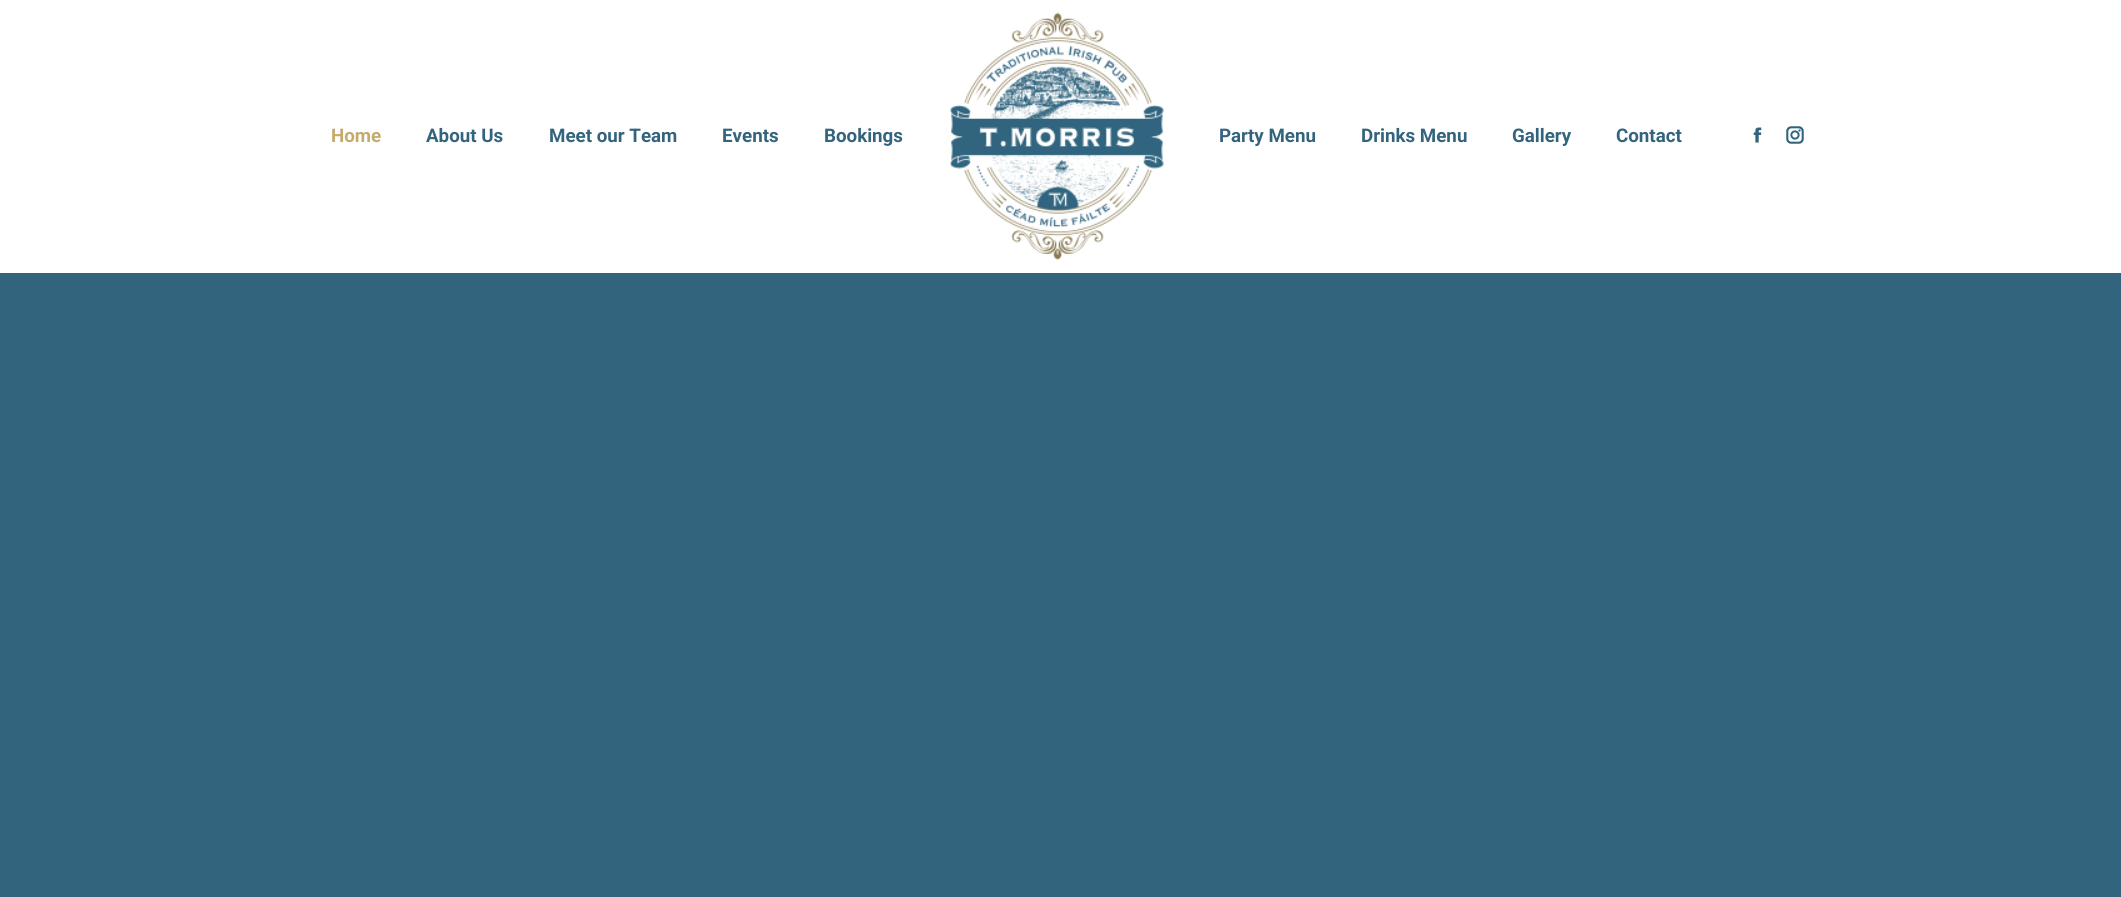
#include <cairo.h>
#include <math.h>
#include <stddef.h>

static cairo_t *ctx;

static void use_color(int r, int g, int b) {
    cairo_set_source_rgb(ctx, r / 255.0, g / 255.0, b / 255.0);
}

static void picture(const char *path, double x, double y, double w, double h) {
    cairo_surface_t *image = cairo_image_surface_create_from_png(path);
    cairo_save(ctx);
    cairo_set_source_surface(ctx, image, x, y);
    cairo_rectangle(ctx, x, y, w, h);
    cairo_fill(ctx);
    cairo_restore(ctx);
    cairo_surface_destroy(image);
}

int main(void) {
    cairo_surface_t *surface = cairo_image_surface_create(CAIRO_FORMAT_RGB24, 2121, 897);
    ctx = cairo_create(surface);
    cairo_font_options_t *options = cairo_font_options_create();
    cairo_font_options_set_hint_metrics(options, CAIRO_HINT_METRICS_OFF);
    cairo_font_options_set_hint_style(options, CAIRO_HINT_STYLE_NONE);
    cairo_set_font_options(ctx, options);
    cairo_set_miter_limit(ctx, 4);
    use_color(51, 100, 126);
    cairo_paint(ctx);
    use_color(255, 255, 255);
    cairo_rectangle(ctx, 0, 0, 2121, 273);
    cairo_fill(ctx);
    cairo_select_font_face(ctx, "Roboto", CAIRO_FONT_SLANT_NORMAL, CAIRO_FONT_WEIGHT_BOLD);
    cairo_set_font_size(ctx, 18.75);
    use_color(197, 171, 107);
    cairo_move_to(ctx, 331, 142);
    cairo_show_text(ctx, "Home");
    use_color(51, 100, 126);
    cairo_move_to(ctx, 426, 142);
    cairo_show_text(ctx, "About Us");
    cairo_move_to(ctx, 549, 142);
    cairo_show_text(ctx, "Meet our Team");
    cairo_move_to(ctx, 722, 142);
    cairo_show_text(ctx, "Events");
    cairo_move_to(ctx, 824, 142);
    cairo_show_text(ctx, "Bookings");
    picture("img1.png", 950, 12, 214, 249);
    cairo_move_to(ctx, 1219, 142);
    cairo_show_text(ctx, "Party Menu");
    cairo_move_to(ctx, 1361, 142);
    cairo_show_text(ctx, "Drinks Menu");
    cairo_move_to(ctx, 1512, 142);
    cairo_show_text(ctx, "Gallery");
    cairo_move_to(ctx, 1616, 142);
    cairo_show_text(ctx, "Contact");
    picture("img2.png", 1753, 127, 9, 16);
    picture("img3.png", 1786, 126, 18, 18);
    cairo_surface_write_to_png(surface, "result.png");
    cairo_font_options_destroy(options);
    cairo_destroy(ctx);
    cairo_surface_destroy(surface);
    return 0;
}
